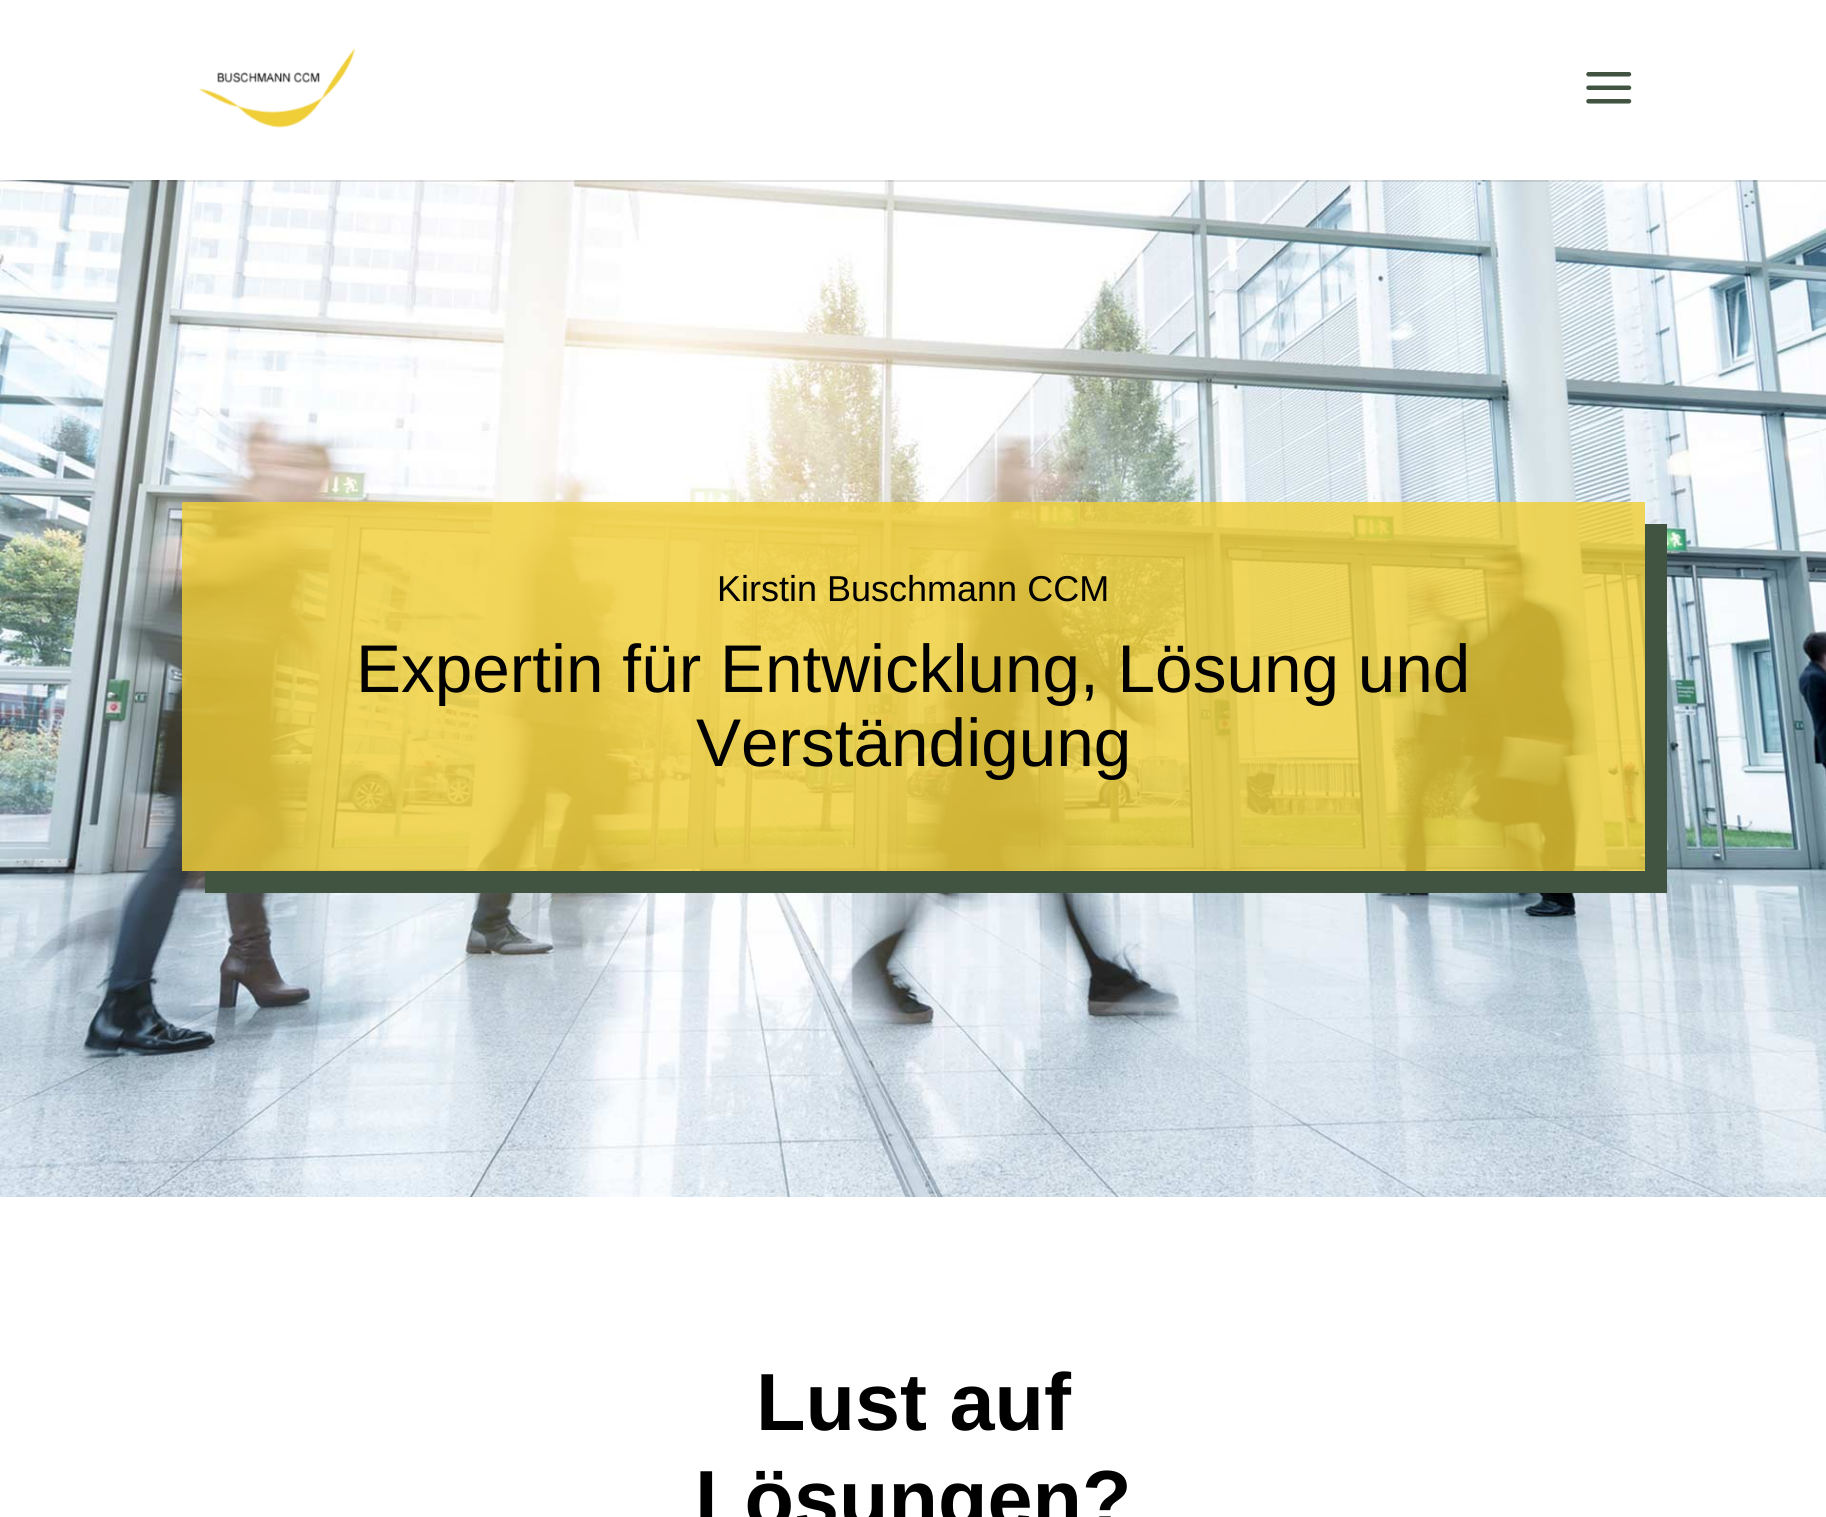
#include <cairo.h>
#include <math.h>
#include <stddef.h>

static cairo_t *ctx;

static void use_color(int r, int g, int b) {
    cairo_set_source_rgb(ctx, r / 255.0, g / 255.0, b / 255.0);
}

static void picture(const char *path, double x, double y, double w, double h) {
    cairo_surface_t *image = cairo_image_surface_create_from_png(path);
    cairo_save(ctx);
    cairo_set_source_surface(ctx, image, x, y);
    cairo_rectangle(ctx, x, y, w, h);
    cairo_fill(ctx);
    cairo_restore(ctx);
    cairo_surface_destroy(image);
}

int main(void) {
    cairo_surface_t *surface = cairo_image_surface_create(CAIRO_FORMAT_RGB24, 1826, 1517);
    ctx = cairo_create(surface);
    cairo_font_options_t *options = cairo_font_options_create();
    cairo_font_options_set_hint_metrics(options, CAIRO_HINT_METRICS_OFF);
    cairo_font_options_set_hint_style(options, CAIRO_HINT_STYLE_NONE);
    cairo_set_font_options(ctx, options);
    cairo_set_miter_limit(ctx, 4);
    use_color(255, 255, 255);
    cairo_paint(ctx);
    picture("img3.png", 0, 180, 1826, 1017);
    cairo_set_source_rgba(ctx, 0, 0, 0, 0.1);
    cairo_rectangle(ctx, 0, 180, 1826, 2);
    cairo_fill(ctx);
    picture("img1.png", 199, 48, 157, 80);
    picture("img2.png", 1586, 72, 46, 32);
    use_color(64, 84, 65);
    cairo_new_path(ctx);
    cairo_move_to(ctx, 205, 871);
    cairo_line_to(ctx, 205, 893);
    cairo_line_to(ctx, 1667, 893);
    cairo_line_to(ctx, 1667, 524);
    cairo_line_to(ctx, 1645, 524);
    cairo_line_to(ctx, 1645, 871);
    cairo_close_path(ctx);
    cairo_fill(ctx);
    cairo_set_source_rgba(ctx, 0.937, 0.808, 0.216, 0.81);
    cairo_rectangle(ctx, 182, 502, 1463, 369);
    cairo_fill(ctx);
    cairo_select_font_face(ctx, "Liberation Sans", CAIRO_FONT_SLANT_NORMAL, CAIRO_FONT_WEIGHT_NORMAL);
    cairo_set_font_size(ctx, 36);
    use_color(0, 0, 0);
    cairo_move_to(ctx, 717, 601);
    cairo_show_text(ctx, "Kirstin Buschmann CCM");
    cairo_set_font_size(ctx, 67.5);
    cairo_move_to(ctx, 356, 692);
    cairo_show_text(ctx, "Expertin für Entwicklung, Lösung und");
    cairo_move_to(ctx, 696, 766);
    cairo_show_text(ctx, "Verständigung");
    cairo_select_font_face(ctx, "Liberation Sans", CAIRO_FONT_SLANT_NORMAL, CAIRO_FONT_WEIGHT_BOLD);
    cairo_set_font_size(ctx, 81);
    cairo_move_to(ctx, 756, 1430);
    cairo_show_text(ctx, "Lust auf");
    cairo_move_to(ctx, 695, 1527);
    cairo_show_text(ctx, "Lösungen?");
    cairo_surface_write_to_png(surface, "result.png");
    cairo_font_options_destroy(options);
    cairo_destroy(ctx);
    cairo_surface_destroy(surface);
    return 0;
}
